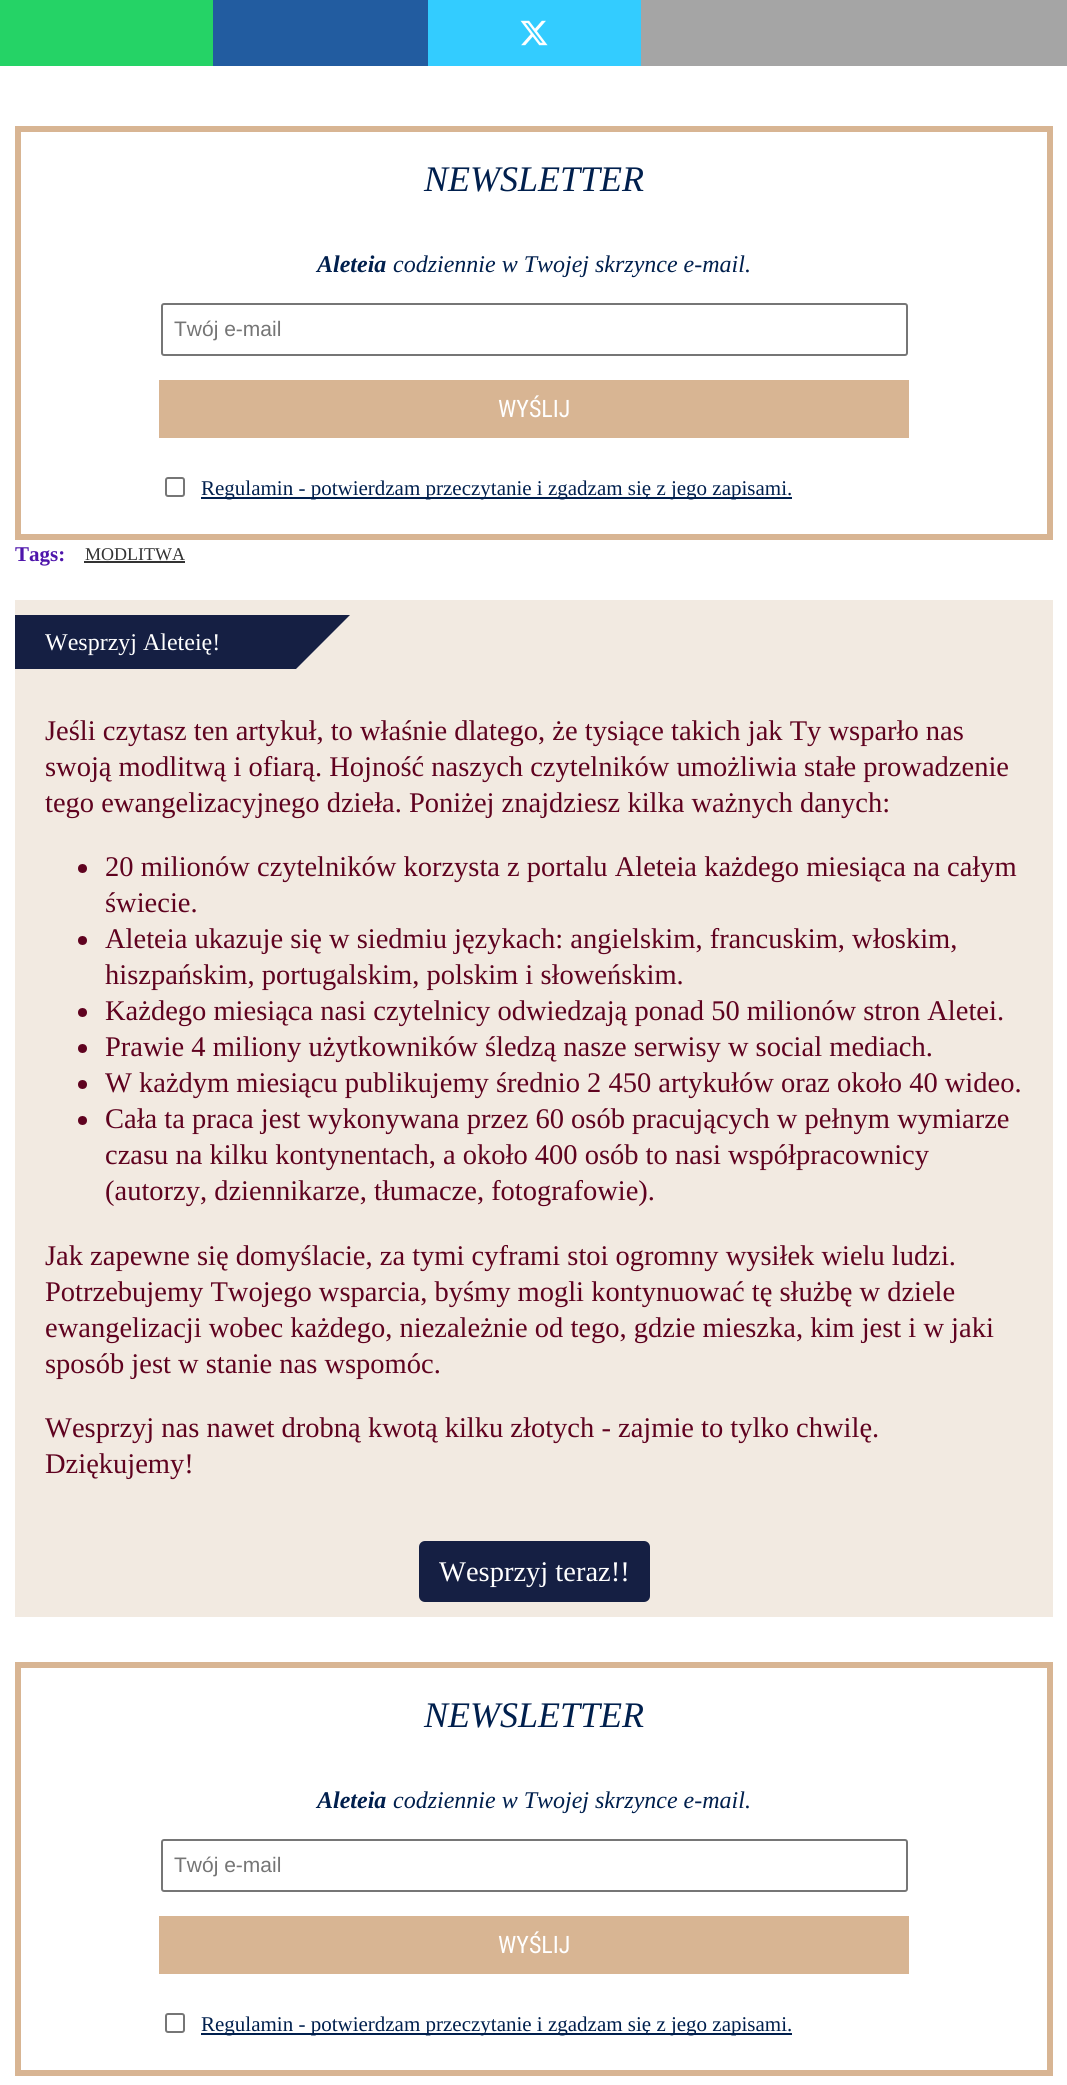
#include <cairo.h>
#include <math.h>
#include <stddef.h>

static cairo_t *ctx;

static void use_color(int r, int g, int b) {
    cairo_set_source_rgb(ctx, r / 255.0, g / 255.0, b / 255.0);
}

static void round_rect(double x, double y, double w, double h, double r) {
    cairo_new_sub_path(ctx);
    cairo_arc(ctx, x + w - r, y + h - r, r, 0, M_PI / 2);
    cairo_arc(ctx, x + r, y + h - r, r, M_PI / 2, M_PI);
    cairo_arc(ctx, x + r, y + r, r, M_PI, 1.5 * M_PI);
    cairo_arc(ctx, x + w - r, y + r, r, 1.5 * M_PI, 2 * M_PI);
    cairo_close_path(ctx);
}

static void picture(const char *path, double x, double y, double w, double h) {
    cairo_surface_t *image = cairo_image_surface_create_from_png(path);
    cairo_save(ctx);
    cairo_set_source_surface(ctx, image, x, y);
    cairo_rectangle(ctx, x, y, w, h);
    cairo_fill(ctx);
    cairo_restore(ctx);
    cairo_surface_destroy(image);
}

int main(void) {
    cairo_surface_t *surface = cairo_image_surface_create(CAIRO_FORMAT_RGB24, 1067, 2085);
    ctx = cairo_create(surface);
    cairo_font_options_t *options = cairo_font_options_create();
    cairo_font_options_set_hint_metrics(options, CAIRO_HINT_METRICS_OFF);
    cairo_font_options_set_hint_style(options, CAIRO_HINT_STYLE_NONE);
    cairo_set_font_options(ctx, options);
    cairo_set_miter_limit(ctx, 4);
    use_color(255, 255, 255);
    cairo_paint(ctx);
    use_color(37, 211, 102);
    cairo_rectangle(ctx, 0, 0, 213, 66);
    cairo_fill(ctx);
    use_color(34, 92, 160);
    cairo_rectangle(ctx, 213, 0, 215, 66);
    cairo_fill(ctx);
    use_color(51, 204, 255);
    cairo_rectangle(ctx, 428, 0, 213, 66);
    cairo_fill(ctx);
    picture("img1.png", 520, 20, 28, 26);
    use_color(165, 165, 165);
    cairo_rectangle(ctx, 641, 0, 426, 66);
    cairo_fill(ctx);
    cairo_rectangle(ctx, 18, 129, 1032, 408);
    use_color(216, 181, 147);
    cairo_set_line_width(ctx, 6);
    cairo_stroke(ctx);
    cairo_select_font_face(ctx, "Liberation Serif", CAIRO_FONT_SLANT_ITALIC, CAIRO_FONT_WEIGHT_NORMAL);
    cairo_set_font_size(ctx, 36);
    use_color(0, 31, 77);
    cairo_move_to(ctx, 424, 191);
    cairo_show_text(ctx, "NEWSLETTER");
    cairo_select_font_face(ctx, "Liberation Serif", CAIRO_FONT_SLANT_ITALIC, CAIRO_FONT_WEIGHT_BOLD);
    cairo_set_font_size(ctx, 24);
    cairo_move_to(ctx, 317, 272);
    cairo_show_text(ctx, "Aleteia");
    cairo_select_font_face(ctx, "Liberation Serif", CAIRO_FONT_SLANT_ITALIC, CAIRO_FONT_WEIGHT_NORMAL);
    cairo_move_to(ctx, 393, 272);
    cairo_show_text(ctx, "codziennie w Twojej skrzynce e-mail.");
    round_rect(162, 304, 745, 51, 2);
    use_color(118, 118, 118);
    cairo_set_line_width(ctx, 2);
    cairo_stroke(ctx);
    cairo_select_font_face(ctx, "Liberation Sans", CAIRO_FONT_SLANT_NORMAL, CAIRO_FONT_WEIGHT_NORMAL);
    cairo_set_font_size(ctx, 21);
    use_color(117, 117, 117);
    cairo_move_to(ctx, 174, 336);
    cairo_show_text(ctx, "Twój e-mail");
    use_color(216, 181, 147);
    cairo_rectangle(ctx, 159, 380, 750, 58);
    cairo_fill(ctx);
    cairo_select_font_face(ctx, "Roboto Condensed", CAIRO_FONT_SLANT_NORMAL, CAIRO_FONT_WEIGHT_NORMAL);
    cairo_set_font_size(ctx, 24);
    use_color(255, 255, 255);
    cairo_move_to(ctx, 498, 417);
    cairo_show_text(ctx, "WYŚLIJ");
    round_rect(166, 478, 18, 18, 2);
    use_color(118, 118, 118);
    cairo_stroke(ctx);
    use_color(0, 31, 77);
    cairo_rectangle(ctx, 201, 497, 591, 2);
    cairo_fill(ctx);
    cairo_select_font_face(ctx, "Liberation Serif", CAIRO_FONT_SLANT_NORMAL, CAIRO_FONT_WEIGHT_NORMAL);
    cairo_set_font_size(ctx, 21);
    cairo_move_to(ctx, 201, 495);
    cairo_show_text(ctx, "Regulamin - potwierdzam przeczytanie i zgadzam się z jego zapisami.");
    cairo_select_font_face(ctx, "Liberation Serif", CAIRO_FONT_SLANT_NORMAL, CAIRO_FONT_WEIGHT_BOLD);
    use_color(78, 21, 171);
    cairo_move_to(ctx, 15, 561);
    cairo_show_text(ctx, "Tags:");
    cairo_select_font_face(ctx, "Liberation Serif", CAIRO_FONT_SLANT_NORMAL, CAIRO_FONT_WEIGHT_NORMAL);
    cairo_set_font_size(ctx, 18);
    use_color(51, 51, 51);
    cairo_move_to(ctx, 85, 560);
    cairo_show_text(ctx, "MODLITWA");
    cairo_rectangle(ctx, 84, 561, 101, 2);
    cairo_fill(ctx);
    use_color(242, 234, 225);
    cairo_rectangle(ctx, 15, 600, 1038, 1017);
    cairo_fill(ctx);
    use_color(21, 31, 67);
    cairo_rectangle(ctx, 15, 615, 281, 54);
    cairo_fill(ctx);
    cairo_set_font_size(ctx, 24);
    use_color(255, 255, 255);
    cairo_move_to(ctx, 45, 650);
    cairo_show_text(ctx, "Wesprzyj Aleteię!");
    use_color(21, 31, 67);
    cairo_new_path(ctx);
    cairo_move_to(ctx, 296, 615);
    cairo_line_to(ctx, 350, 615);
    cairo_line_to(ctx, 296, 669);
    cairo_close_path(ctx);
    cairo_fill(ctx);
    cairo_set_font_size(ctx, 28.5);
    use_color(95, 2, 31);
    cairo_move_to(ctx, 45, 740);
    cairo_show_text(ctx, "Jeśli czytasz ten artykuł, to właśnie dlatego, że tysiące takich jak Ty wsparło nas");
    cairo_move_to(ctx, 45, 776);
    cairo_show_text(ctx, "swoją modlitwą i ofiarą. Hojność naszych czytelników umożliwia stałe prowadzenie");
    cairo_move_to(ctx, 45, 812);
    cairo_show_text(ctx, "tego ewangelizacyjnego dzieła. Poniżej znajdziesz kilka ważnych danych:");
    cairo_new_path(ctx);
    cairo_arc(ctx, 82.5, 868.5, 4.5, 0, 2 * M_PI);
    cairo_fill(ctx);
    cairo_move_to(ctx, 105, 876);
    cairo_show_text(ctx, "20 milionów czytelników korzysta z portalu Aleteia każdego miesiąca na całym");
    cairo_move_to(ctx, 105, 912);
    cairo_show_text(ctx, "świecie.");
    cairo_new_path(ctx);
    cairo_arc(ctx, 82.5, 940.5, 4.5, 0, 2 * M_PI);
    cairo_fill(ctx);
    cairo_move_to(ctx, 105, 948);
    cairo_show_text(ctx, "Aleteia ukazuje się w siedmiu językach: angielskim, francuskim, włoskim,");
    cairo_move_to(ctx, 105, 984);
    cairo_show_text(ctx, "hiszpańskim, portugalskim, polskim i słoweńskim.");
    cairo_new_path(ctx);
    cairo_arc(ctx, 82.5, 1012.5, 4.5, 0, 2 * M_PI);
    cairo_fill(ctx);
    cairo_move_to(ctx, 105, 1020);
    cairo_show_text(ctx, "Każdego miesiąca nasi czytelnicy odwiedzają ponad 50 milionów stron Aletei.");
    cairo_new_path(ctx);
    cairo_arc(ctx, 82.5, 1048.5, 4.5, 0, 2 * M_PI);
    cairo_fill(ctx);
    cairo_move_to(ctx, 105, 1056);
    cairo_show_text(ctx, "Prawie 4 miliony użytkowników śledzą nasze serwisy w social mediach.");
    cairo_new_path(ctx);
    cairo_arc(ctx, 82.5, 1084.5, 4.5, 0, 2 * M_PI);
    cairo_fill(ctx);
    cairo_move_to(ctx, 105, 1092);
    cairo_show_text(ctx, "W każdym miesiącu publikujemy średnio 2 450 artykułów oraz około 40 wideo.");
    cairo_new_path(ctx);
    cairo_arc(ctx, 82.5, 1120.5, 4.5, 0, 2 * M_PI);
    cairo_fill(ctx);
    cairo_move_to(ctx, 105, 1128);
    cairo_show_text(ctx, "Cała ta praca jest wykonywana przez 60 osób pracujących w pełnym wymiarze");
    cairo_move_to(ctx, 105, 1164);
    cairo_show_text(ctx, "czasu na kilku kontynentach, a około 400 osób to nasi współpracownicy");
    cairo_move_to(ctx, 105, 1200);
    cairo_show_text(ctx, "(autorzy, dziennikarze, tłumacze, fotografowie).");
    cairo_move_to(ctx, 45, 1265);
    cairo_show_text(ctx, "Jak zapewne się domyślacie, za tymi cyframi stoi ogromny wysiłek wielu ludzi.");
    cairo_move_to(ctx, 45, 1301);
    cairo_show_text(ctx, "Potrzebujemy Twojego wsparcia, byśmy mogli kontynuować tę służbę w dziele");
    cairo_move_to(ctx, 45, 1337);
    cairo_show_text(ctx, "ewangelizacji wobec każdego, niezależnie od tego, gdzie mieszka, kim jest i w jaki");
    cairo_move_to(ctx, 45, 1373);
    cairo_show_text(ctx, "sposób jest w stanie nas wspomóc.");
    cairo_move_to(ctx, 45, 1437);
    cairo_show_text(ctx, "Wesprzyj nas nawet drobną kwotą kilku złotych - zajmie to tylko chwilę.");
    cairo_move_to(ctx, 45, 1473);
    cairo_show_text(ctx, "Dziękujemy!");
    use_color(21, 31, 67);
    round_rect(419, 1541, 231, 61, 6);
    cairo_fill(ctx);
    use_color(255, 255, 255);
    cairo_move_to(ctx, 439, 1581);
    cairo_show_text(ctx, "Wesprzyj teraz!!");
    cairo_rectangle(ctx, 18, 1665, 1032, 408);
    use_color(216, 181, 147);
    cairo_set_line_width(ctx, 6);
    cairo_stroke(ctx);
    cairo_select_font_face(ctx, "Liberation Serif", CAIRO_FONT_SLANT_ITALIC, CAIRO_FONT_WEIGHT_NORMAL);
    cairo_set_font_size(ctx, 36);
    use_color(0, 31, 77);
    cairo_move_to(ctx, 424, 1727);
    cairo_show_text(ctx, "NEWSLETTER");
    cairo_select_font_face(ctx, "Liberation Serif", CAIRO_FONT_SLANT_ITALIC, CAIRO_FONT_WEIGHT_BOLD);
    cairo_set_font_size(ctx, 24);
    cairo_move_to(ctx, 317, 1808);
    cairo_show_text(ctx, "Aleteia");
    cairo_select_font_face(ctx, "Liberation Serif", CAIRO_FONT_SLANT_ITALIC, CAIRO_FONT_WEIGHT_NORMAL);
    cairo_move_to(ctx, 393, 1808);
    cairo_show_text(ctx, "codziennie w Twojej skrzynce e-mail.");
    round_rect(162, 1840, 745, 51, 2);
    use_color(118, 118, 118);
    cairo_set_line_width(ctx, 2);
    cairo_stroke(ctx);
    cairo_select_font_face(ctx, "Liberation Sans", CAIRO_FONT_SLANT_NORMAL, CAIRO_FONT_WEIGHT_NORMAL);
    cairo_set_font_size(ctx, 21);
    use_color(117, 117, 117);
    cairo_move_to(ctx, 174, 1872);
    cairo_show_text(ctx, "Twój e-mail");
    use_color(216, 181, 147);
    cairo_rectangle(ctx, 159, 1916, 750, 58);
    cairo_fill(ctx);
    cairo_select_font_face(ctx, "Roboto Condensed", CAIRO_FONT_SLANT_NORMAL, CAIRO_FONT_WEIGHT_NORMAL);
    cairo_set_font_size(ctx, 24);
    use_color(255, 255, 255);
    cairo_move_to(ctx, 498, 1953);
    cairo_show_text(ctx, "WYŚLIJ");
    round_rect(166, 2014, 18, 18, 2);
    use_color(118, 118, 118);
    cairo_stroke(ctx);
    use_color(0, 31, 77);
    cairo_rectangle(ctx, 201, 2033, 591, 2);
    cairo_fill(ctx);
    cairo_select_font_face(ctx, "Liberation Serif", CAIRO_FONT_SLANT_NORMAL, CAIRO_FONT_WEIGHT_NORMAL);
    cairo_set_font_size(ctx, 21);
    cairo_move_to(ctx, 201, 2031);
    cairo_show_text(ctx, "Regulamin - potwierdzam przeczytanie i zgadzam się z jego zapisami.");
    cairo_surface_write_to_png(surface, "result.png");
    cairo_font_options_destroy(options);
    cairo_destroy(ctx);
    cairo_surface_destroy(surface);
    return 0;
}
